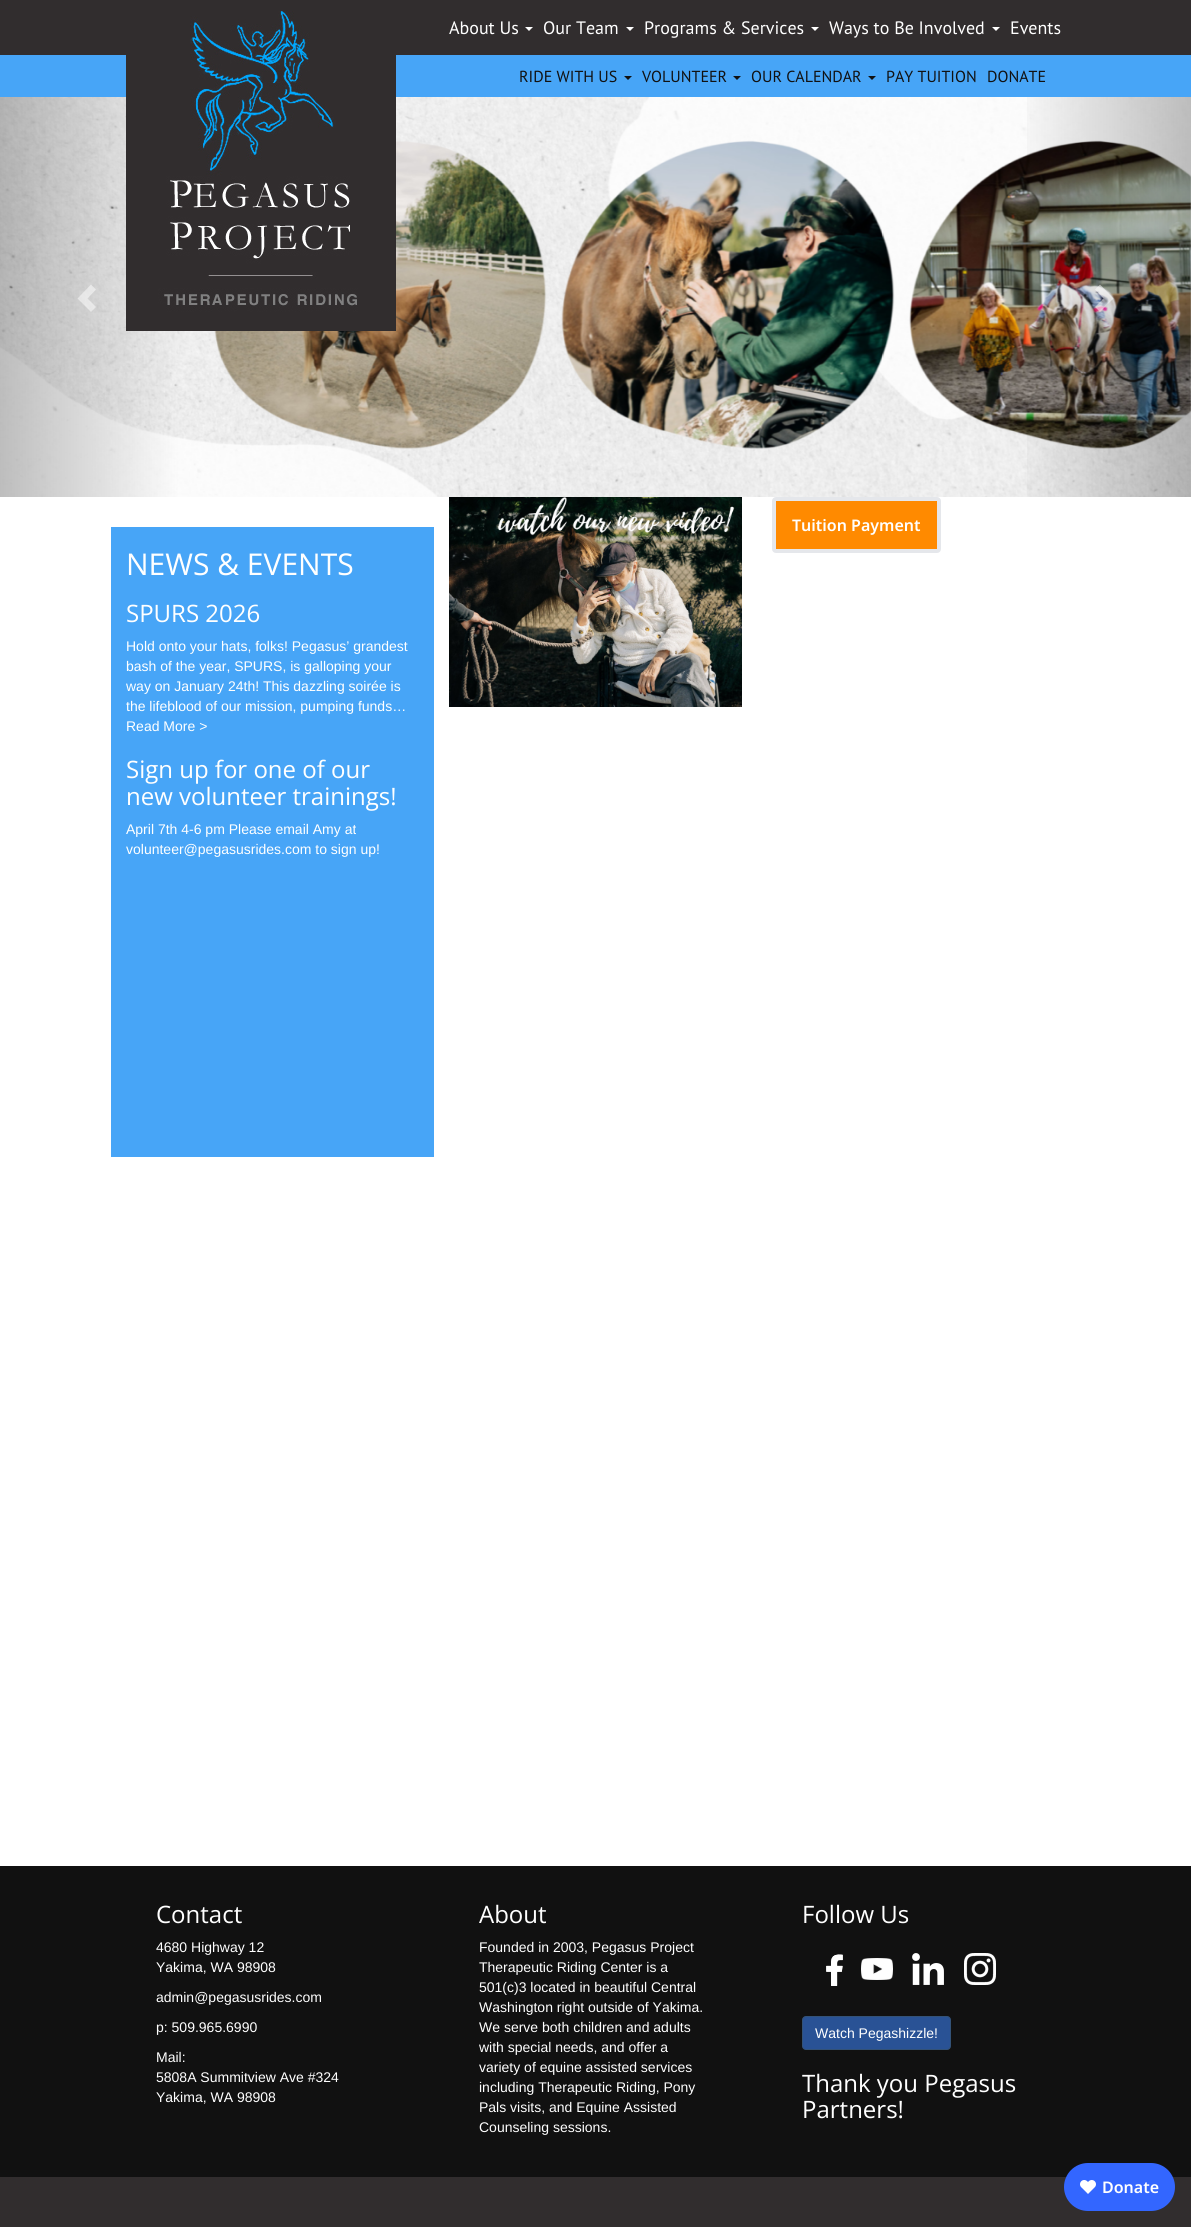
#include <cairo.h>
#include <math.h>
#include <stddef.h>

static cairo_t *ctx;

static void use_color(int r, int g, int b) {
    cairo_set_source_rgb(ctx, r / 255.0, g / 255.0, b / 255.0);
}

static void round_rect(double x, double y, double w, double h, double r) {
    cairo_new_sub_path(ctx);
    cairo_arc(ctx, x + w - r, y + h - r, r, 0, M_PI / 2);
    cairo_arc(ctx, x + r, y + h - r, r, M_PI / 2, M_PI);
    cairo_arc(ctx, x + r, y + r, r, M_PI, 1.5 * M_PI);
    cairo_arc(ctx, x + w - r, y + r, r, 1.5 * M_PI, 2 * M_PI);
    cairo_close_path(ctx);
}

static void picture(const char *path, double x, double y, double w, double h) {
    cairo_surface_t *image = cairo_image_surface_create_from_png(path);
    cairo_save(ctx);
    cairo_set_source_surface(ctx, image, x, y);
    cairo_rectangle(ctx, x, y, w, h);
    cairo_fill(ctx);
    cairo_restore(ctx);
    cairo_surface_destroy(image);
}

int main(void) {
    cairo_surface_t *surface = cairo_image_surface_create(CAIRO_FORMAT_RGB24, 1191, 2227);
    ctx = cairo_create(surface);
    cairo_font_options_t *options = cairo_font_options_create();
    cairo_font_options_set_hint_metrics(options, CAIRO_HINT_METRICS_OFF);
    cairo_font_options_set_hint_style(options, CAIRO_HINT_STYLE_NONE);
    cairo_set_font_options(ctx, options);
    cairo_set_miter_limit(ctx, 4);
    cairo_pattern_t *gradient;
    use_color(255, 255, 255);
    cairo_paint(ctx);
    use_color(49, 45, 46);
    cairo_rectangle(ctx, 0, 0, 1191, 55);
    cairo_fill(ctx);
    use_color(71, 165, 247);
    cairo_rectangle(ctx, 0, 55, 1191, 42);
    cairo_fill(ctx);
    picture("img2.png", 0, 97, 1191, 400);
    picture("img1.png", 126, 11, 270, 320);
    cairo_select_font_face(ctx, "PT Sans", CAIRO_FONT_SLANT_NORMAL, CAIRO_FONT_WEIGHT_NORMAL);
    cairo_set_font_size(ctx, 18);
    use_color(255, 255, 255);
    cairo_move_to(ctx, 449, 34);
    cairo_show_text(ctx, "About Us");
    cairo_new_path(ctx);
    cairo_move_to(ctx, 525, 27);
    cairo_line_to(ctx, 533, 27);
    cairo_line_to(ctx, 529, 31);
    cairo_close_path(ctx);
    cairo_fill(ctx);
    cairo_move_to(ctx, 543, 34);
    cairo_show_text(ctx, "Our Team");
    cairo_new_path(ctx);
    cairo_move_to(ctx, 626, 27);
    cairo_line_to(ctx, 634, 27);
    cairo_line_to(ctx, 630, 31);
    cairo_close_path(ctx);
    cairo_fill(ctx);
    cairo_move_to(ctx, 644, 34);
    cairo_show_text(ctx, "Programs & Services");
    cairo_new_path(ctx);
    cairo_move_to(ctx, 811, 27);
    cairo_line_to(ctx, 819, 27);
    cairo_line_to(ctx, 815, 31);
    cairo_close_path(ctx);
    cairo_fill(ctx);
    cairo_move_to(ctx, 829, 34);
    cairo_show_text(ctx, "Ways to Be Involved");
    cairo_new_path(ctx);
    cairo_move_to(ctx, 992, 27);
    cairo_line_to(ctx, 1000, 27);
    cairo_line_to(ctx, 996, 31);
    cairo_close_path(ctx);
    cairo_fill(ctx);
    cairo_move_to(ctx, 1010, 34);
    cairo_show_text(ctx, "Events");
    cairo_set_font_size(ctx, 16);
    use_color(17, 17, 17);
    cairo_move_to(ctx, 519, 82);
    cairo_show_text(ctx, "RIDE WITH US");
    cairo_new_path(ctx);
    cairo_move_to(ctx, 624, 76);
    cairo_line_to(ctx, 632, 76);
    cairo_line_to(ctx, 628, 80);
    cairo_close_path(ctx);
    cairo_fill(ctx);
    cairo_move_to(ctx, 642, 82);
    cairo_show_text(ctx, "VOLUNTEER");
    cairo_new_path(ctx);
    cairo_move_to(ctx, 733, 76);
    cairo_line_to(ctx, 741, 76);
    cairo_line_to(ctx, 737, 80);
    cairo_close_path(ctx);
    cairo_fill(ctx);
    cairo_move_to(ctx, 751, 82);
    cairo_show_text(ctx, "OUR CALENDAR");
    cairo_new_path(ctx);
    cairo_move_to(ctx, 868, 76);
    cairo_line_to(ctx, 876, 76);
    cairo_line_to(ctx, 872, 80);
    cairo_close_path(ctx);
    cairo_fill(ctx);
    cairo_move_to(ctx, 886, 82);
    cairo_show_text(ctx, "PAY TUITION");
    cairo_move_to(ctx, 987, 82);
    cairo_show_text(ctx, "DONATE");
    cairo_set_source_rgba(ctx, 1, 1, 1, 0.5);
    cairo_new_path(ctx);
    cairo_move_to(ctx, 96, 289.5);
    cairo_line_to(ctx, 87.5, 298.5);
    cairo_line_to(ctx, 96, 307);
    cairo_line_to(ctx, 91, 312);
    cairo_line_to(ctx, 77.5, 298.5);
    cairo_line_to(ctx, 91, 284.5);
    cairo_close_path(ctx);
    cairo_fill(ctx);
    gradient = cairo_pattern_create_linear(1012, 297, 1191, 297);
    cairo_pattern_add_color_stop_rgba(gradient, 0, 0, 0, 0, 0);
    cairo_pattern_add_color_stop_rgba(gradient, 1, 0, 0, 0, 0.25);
    cairo_set_source(ctx, gradient);
    cairo_pattern_destroy(gradient);
    cairo_rectangle(ctx, 1027, 97, 164, 400);
    cairo_fill(ctx);
    cairo_set_source_rgba(ctx, 1, 1, 1, 0.5);
    cairo_new_path(ctx);
    cairo_move_to(ctx, 1113.5, 298.5);
    cairo_line_to(ctx, 1100, 312);
    cairo_line_to(ctx, 1095, 307);
    cairo_line_to(ctx, 1103.5, 298.5);
    cairo_line_to(ctx, 1095, 289.5);
    cairo_line_to(ctx, 1100, 284.5);
    cairo_close_path(ctx);
    cairo_fill(ctx);
    use_color(71, 165, 247);
    cairo_rectangle(ctx, 111, 527, 323, 630);
    cairo_fill(ctx);
    cairo_select_font_face(ctx, "Open Sans", CAIRO_FONT_SLANT_NORMAL, CAIRO_FONT_WEIGHT_NORMAL);
    cairo_set_font_size(ctx, 30);
    use_color(255, 255, 255);
    cairo_move_to(ctx, 126, 575);
    cairo_show_text(ctx, "NEWS & EVENTS");
    cairo_set_font_size(ctx, 24);
    cairo_move_to(ctx, 126, 622);
    cairo_show_text(ctx, "SPURS 2026");
    cairo_select_font_face(ctx, "Liberation Sans", CAIRO_FONT_SLANT_NORMAL, CAIRO_FONT_WEIGHT_NORMAL);
    cairo_set_font_size(ctx, 14);
    cairo_move_to(ctx, 126, 651);
    cairo_show_text(ctx, "Hold onto your hats, folks! Pegasus’ grandest");
    cairo_move_to(ctx, 126, 671);
    cairo_show_text(ctx, "bash of the year, SPURS, is galloping your");
    cairo_move_to(ctx, 126, 691);
    cairo_show_text(ctx, "way on January 24th! This dazzling soirée is");
    cairo_move_to(ctx, 126, 711);
    cairo_show_text(ctx, "the lifeblood of our mission, pumping funds…");
    cairo_move_to(ctx, 126, 731);
    cairo_show_text(ctx, "Read More >");
    cairo_select_font_face(ctx, "Open Sans", CAIRO_FONT_SLANT_NORMAL, CAIRO_FONT_WEIGHT_NORMAL);
    cairo_set_font_size(ctx, 24);
    cairo_move_to(ctx, 126, 778);
    cairo_show_text(ctx, "Sign up for one of our");
    cairo_move_to(ctx, 126, 805);
    cairo_show_text(ctx, "new volunteer trainings!");
    cairo_select_font_face(ctx, "Liberation Sans", CAIRO_FONT_SLANT_NORMAL, CAIRO_FONT_WEIGHT_NORMAL);
    cairo_set_font_size(ctx, 14);
    cairo_move_to(ctx, 126, 834);
    cairo_show_text(ctx, "April 7th 4-6 pm Please email Amy at");
    cairo_move_to(ctx, 126, 854);
    cairo_show_text(ctx, "volunteer@pegasusrides.com to sign up!");
    picture("img3.png", 449, 497, 293, 210);
    use_color(255, 138, 0);
    round_rect(774, 499, 165, 52, 2);
    cairo_fill_preserve(ctx);
    use_color(229, 231, 235);
    cairo_set_line_width(ctx, 4);
    cairo_stroke(ctx);
    cairo_select_font_face(ctx, "Noto Sans SemiBold", CAIRO_FONT_SLANT_NORMAL, CAIRO_FONT_WEIGHT_NORMAL);
    cairo_set_font_size(ctx, 16);
    use_color(255, 255, 255);
    cairo_move_to(ctx, 792, 531);
    cairo_show_text(ctx, "Tuition Payment");
    use_color(17, 17, 17);
    cairo_rectangle(ctx, 0, 1866, 1191, 311);
    cairo_fill(ctx);
    use_color(49, 45, 46);
    cairo_rectangle(ctx, 0, 2177, 1191, 50);
    cairo_fill(ctx);
    use_color(51, 102, 255);
    round_rect(1064, 2163, 111, 48, 24);
    cairo_fill(ctx);
    picture("img4.png", 1080, 2180, 16, 14);
    use_color(255, 255, 255);
    cairo_move_to(ctx, 1102, 2193);
    cairo_show_text(ctx, "Donate");
    cairo_select_font_face(ctx, "Open Sans", CAIRO_FONT_SLANT_NORMAL, CAIRO_FONT_WEIGHT_NORMAL);
    cairo_set_font_size(ctx, 24);
    cairo_move_to(ctx, 156, 1923);
    cairo_show_text(ctx, "Contact");
    cairo_select_font_face(ctx, "Liberation Sans", CAIRO_FONT_SLANT_NORMAL, CAIRO_FONT_WEIGHT_NORMAL);
    cairo_set_font_size(ctx, 14);
    cairo_move_to(ctx, 156, 1952);
    cairo_show_text(ctx, "4680 Highway 12");
    cairo_move_to(ctx, 156, 1972);
    cairo_show_text(ctx, "Yakima, WA 98908");
    cairo_move_to(ctx, 156, 2002);
    cairo_show_text(ctx, "admin@pegasusrides.com");
    cairo_move_to(ctx, 156, 2032);
    cairo_show_text(ctx, "p: 509.965.6990");
    cairo_move_to(ctx, 156, 2062);
    cairo_show_text(ctx, "Mail:");
    cairo_move_to(ctx, 156, 2082);
    cairo_show_text(ctx, "5808A Summitview Ave #324");
    cairo_move_to(ctx, 156, 2102);
    cairo_show_text(ctx, "Yakima, WA 98908");
    cairo_select_font_face(ctx, "Open Sans", CAIRO_FONT_SLANT_NORMAL, CAIRO_FONT_WEIGHT_NORMAL);
    cairo_set_font_size(ctx, 24);
    cairo_move_to(ctx, 479, 1923);
    cairo_show_text(ctx, "About");
    cairo_select_font_face(ctx, "Liberation Sans", CAIRO_FONT_SLANT_NORMAL, CAIRO_FONT_WEIGHT_NORMAL);
    cairo_set_font_size(ctx, 14);
    cairo_move_to(ctx, 479, 1952);
    cairo_show_text(ctx, "Founded in 2003, Pegasus Project");
    cairo_move_to(ctx, 479, 1972);
    cairo_show_text(ctx, "Therapeutic Riding Center is a");
    cairo_move_to(ctx, 479, 1992);
    cairo_show_text(ctx, "501(c)3 located in beautiful Central");
    cairo_move_to(ctx, 479, 2012);
    cairo_show_text(ctx, "Washington right outside of Yakima.");
    cairo_move_to(ctx, 479, 2032);
    cairo_show_text(ctx, "We serve both children and adults");
    cairo_move_to(ctx, 479, 2052);
    cairo_show_text(ctx, "with special needs, and offer a");
    cairo_move_to(ctx, 479, 2072);
    cairo_show_text(ctx, "variety of equine assisted services");
    cairo_move_to(ctx, 479, 2092);
    cairo_show_text(ctx, "including Therapeutic Riding, Pony");
    cairo_move_to(ctx, 479, 2112);
    cairo_show_text(ctx, "Pals visits, and Equine Assisted");
    cairo_move_to(ctx, 479, 2132);
    cairo_show_text(ctx, "Counseling sessions.");
    cairo_select_font_face(ctx, "Open Sans", CAIRO_FONT_SLANT_NORMAL, CAIRO_FONT_WEIGHT_NORMAL);
    cairo_set_font_size(ctx, 24);
    cairo_move_to(ctx, 802, 1923);
    cairo_show_text(ctx, "Follow Us");
    picture("img5.png", 826, 1954, 17, 32);
    picture("img6.png", 861, 1958, 32, 22);
    picture("img7.png", 912, 1953, 32, 32);
    picture("img8.png", 964, 1953, 32, 32);
    use_color(41, 82, 149);
    round_rect(802.5, 2016.5, 148, 33, 3.5);
    cairo_fill_preserve(ctx);
    use_color(51, 82, 119);
    cairo_set_line_width(ctx, 1);
    cairo_stroke(ctx);
    cairo_select_font_face(ctx, "Liberation Sans", CAIRO_FONT_SLANT_NORMAL, CAIRO_FONT_WEIGHT_NORMAL);
    cairo_set_font_size(ctx, 14);
    use_color(255, 255, 255);
    cairo_move_to(ctx, 815, 2038);
    cairo_show_text(ctx, "Watch Pegashizzle!");
    cairo_select_font_face(ctx, "Open Sans", CAIRO_FONT_SLANT_NORMAL, CAIRO_FONT_WEIGHT_NORMAL);
    cairo_set_font_size(ctx, 24);
    cairo_move_to(ctx, 802, 2092);
    cairo_show_text(ctx, "Thank you Pegasus");
    cairo_move_to(ctx, 802, 2118);
    cairo_show_text(ctx, "Partners!");
    cairo_surface_write_to_png(surface, "result.png");
    cairo_font_options_destroy(options);
    cairo_destroy(ctx);
    cairo_surface_destroy(surface);
    return 0;
}
